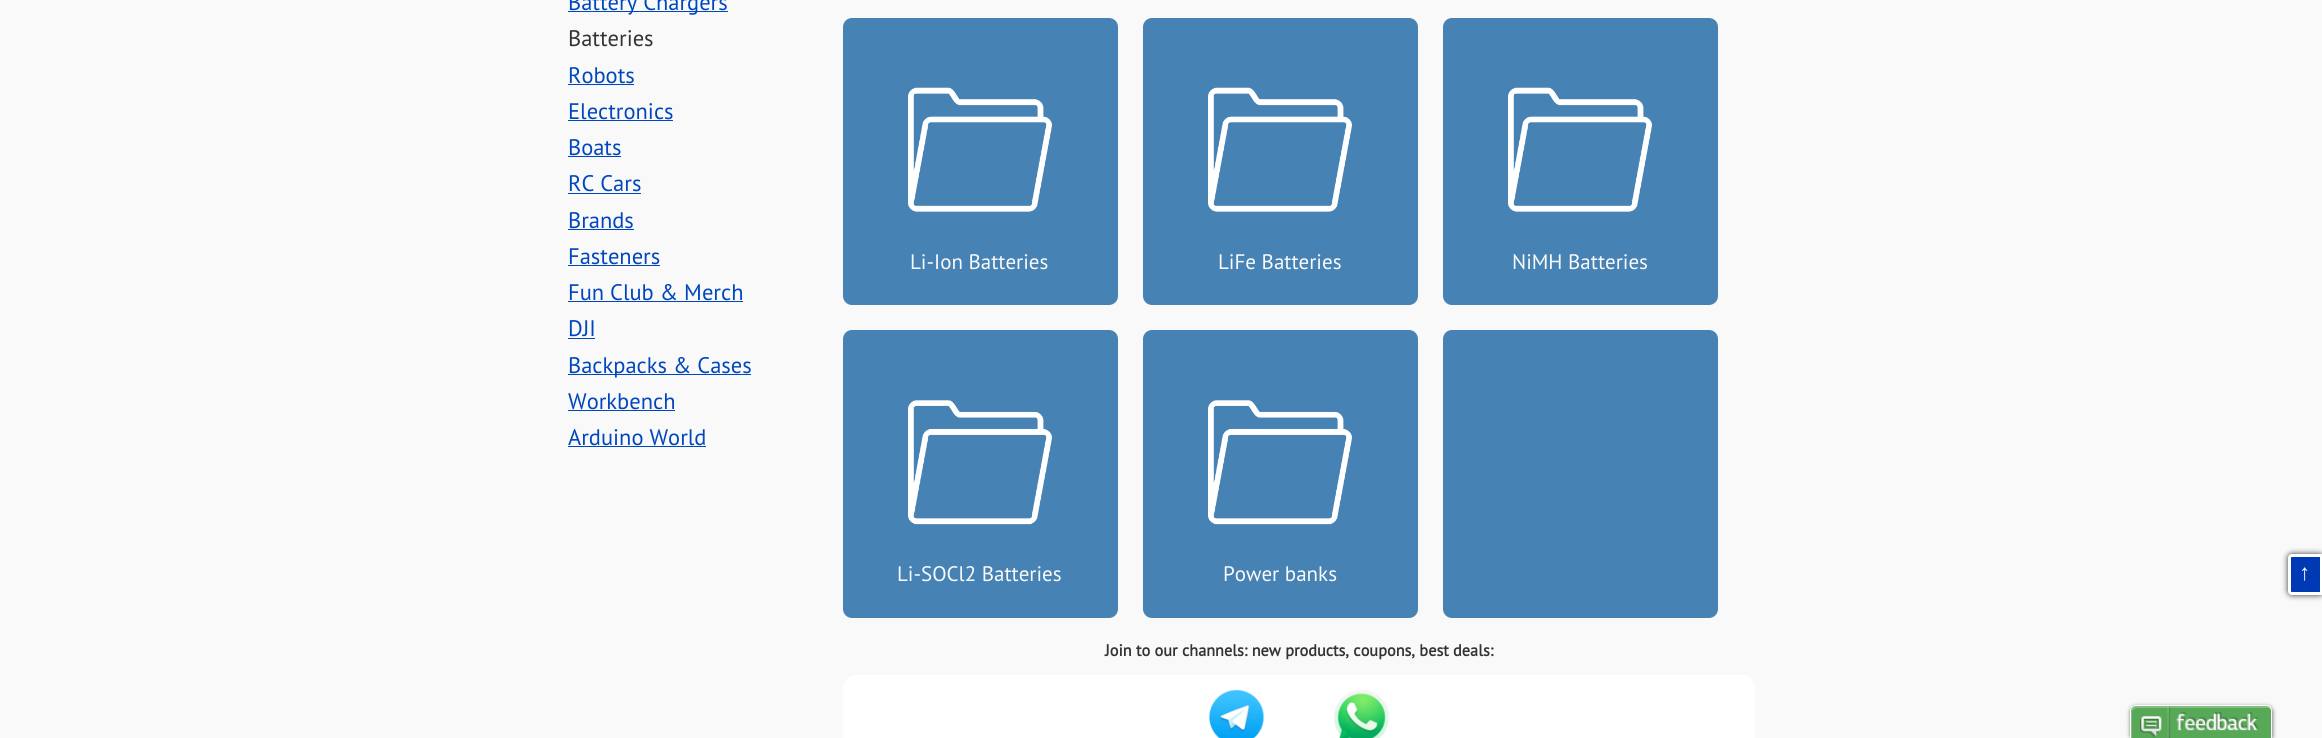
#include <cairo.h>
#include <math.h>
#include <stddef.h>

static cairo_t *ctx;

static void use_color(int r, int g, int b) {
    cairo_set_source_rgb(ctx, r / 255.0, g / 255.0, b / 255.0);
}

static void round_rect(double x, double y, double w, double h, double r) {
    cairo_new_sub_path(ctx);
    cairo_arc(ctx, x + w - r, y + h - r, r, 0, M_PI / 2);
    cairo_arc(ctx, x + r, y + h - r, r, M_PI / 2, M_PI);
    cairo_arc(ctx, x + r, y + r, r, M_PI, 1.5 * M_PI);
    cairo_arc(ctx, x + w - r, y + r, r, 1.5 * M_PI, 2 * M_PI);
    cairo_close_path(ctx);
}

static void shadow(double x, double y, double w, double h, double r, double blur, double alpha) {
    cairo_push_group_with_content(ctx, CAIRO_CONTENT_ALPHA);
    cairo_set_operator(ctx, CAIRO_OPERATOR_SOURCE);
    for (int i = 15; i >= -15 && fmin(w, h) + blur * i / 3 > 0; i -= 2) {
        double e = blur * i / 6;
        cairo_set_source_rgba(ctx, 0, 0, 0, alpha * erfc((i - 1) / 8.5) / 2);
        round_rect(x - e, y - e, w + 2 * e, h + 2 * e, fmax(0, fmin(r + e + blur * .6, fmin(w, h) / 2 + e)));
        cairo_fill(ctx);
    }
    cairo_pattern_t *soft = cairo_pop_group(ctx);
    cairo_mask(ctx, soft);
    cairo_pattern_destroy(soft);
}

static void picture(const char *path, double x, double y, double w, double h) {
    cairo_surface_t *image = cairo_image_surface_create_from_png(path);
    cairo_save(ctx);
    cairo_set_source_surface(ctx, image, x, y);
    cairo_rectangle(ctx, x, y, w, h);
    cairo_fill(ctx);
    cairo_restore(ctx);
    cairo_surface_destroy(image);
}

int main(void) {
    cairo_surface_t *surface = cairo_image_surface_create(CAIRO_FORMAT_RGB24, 2322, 738);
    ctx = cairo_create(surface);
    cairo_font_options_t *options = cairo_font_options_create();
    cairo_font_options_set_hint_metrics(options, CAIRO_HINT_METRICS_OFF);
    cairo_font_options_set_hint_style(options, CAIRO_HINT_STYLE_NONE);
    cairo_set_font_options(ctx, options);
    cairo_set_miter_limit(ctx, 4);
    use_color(249, 249, 249);
    cairo_paint(ctx);
    use_color(0, 71, 189);
    cairo_rectangle(ctx, 568, 11, 160, 1);
    cairo_fill(ctx);
    cairo_select_font_face(ctx, "PT Sans", CAIRO_FONT_SLANT_NORMAL, CAIRO_FONT_WEIGHT_NORMAL);
    cairo_set_font_size(ctx, 22.5);
    cairo_move_to(ctx, 568, 10);
    cairo_show_text(ctx, "Battery Chargers");
    use_color(51, 51, 51);
    cairo_move_to(ctx, 568, 46);
    cairo_show_text(ctx, "Batteries");
    use_color(0, 71, 189);
    cairo_move_to(ctx, 568, 83);
    cairo_show_text(ctx, "Robots");
    cairo_rectangle(ctx, 568, 84, 66, 1);
    cairo_fill(ctx);
    cairo_move_to(ctx, 568, 119);
    cairo_show_text(ctx, "Electronics");
    cairo_rectangle(ctx, 568, 120, 105, 1);
    cairo_fill(ctx);
    cairo_move_to(ctx, 568, 155);
    cairo_show_text(ctx, "Boats");
    cairo_rectangle(ctx, 568, 156, 53, 1);
    cairo_fill(ctx);
    cairo_move_to(ctx, 568, 191);
    cairo_show_text(ctx, "RC Cars");
    cairo_rectangle(ctx, 568, 193, 73, 1);
    cairo_fill(ctx);
    cairo_move_to(ctx, 568, 228);
    cairo_show_text(ctx, "Brands");
    cairo_rectangle(ctx, 568, 229, 66, 1);
    cairo_fill(ctx);
    cairo_move_to(ctx, 568, 264);
    cairo_show_text(ctx, "Fasteners");
    cairo_rectangle(ctx, 568, 265, 92, 1);
    cairo_fill(ctx);
    cairo_move_to(ctx, 568, 300);
    cairo_show_text(ctx, "Fun Club & Merch");
    cairo_rectangle(ctx, 568, 301, 175, 1);
    cairo_fill(ctx);
    cairo_move_to(ctx, 568, 336);
    cairo_show_text(ctx, "DJI");
    cairo_rectangle(ctx, 568, 338, 27, 1);
    cairo_fill(ctx);
    cairo_rectangle(ctx, 568, 374, 183, 1);
    cairo_fill(ctx);
    cairo_move_to(ctx, 568, 373);
    cairo_show_text(ctx, "Backpacks & Cases");
    cairo_move_to(ctx, 568, 409);
    cairo_show_text(ctx, "Workbench");
    cairo_rectangle(ctx, 568, 410, 107, 1);
    cairo_fill(ctx);
    cairo_move_to(ctx, 568, 445);
    cairo_show_text(ctx, "Arduino World");
    cairo_rectangle(ctx, 568, 446, 138, 1);
    cairo_fill(ctx);
    use_color(70, 130, 180);
    round_rect(843, 18, 275, 287, 9);
    cairo_fill(ctx);
    picture("img1.png", 908, 87, 144, 125);
    cairo_set_font_size(ctx, 21);
    use_color(250, 250, 250);
    cairo_move_to(ctx, 910, 269);
    cairo_show_text(ctx, "Li-Ion Batteries");
    use_color(70, 130, 180);
    round_rect(1143, 18, 275, 287, 9);
    cairo_fill(ctx);
    picture("img2.png", 1208, 87, 144, 125);
    use_color(250, 250, 250);
    cairo_move_to(ctx, 1218, 269);
    cairo_show_text(ctx, "LiFe Batteries");
    use_color(70, 130, 180);
    round_rect(1443, 18, 275, 287, 9);
    cairo_fill(ctx);
    picture("img1.png", 1508, 87, 144, 125);
    use_color(250, 250, 250);
    cairo_move_to(ctx, 1512, 269);
    cairo_show_text(ctx, "NiMH Batteries");
    use_color(70, 130, 180);
    round_rect(843, 330, 275, 288, 9);
    cairo_fill(ctx);
    picture("img3.png", 908, 400, 144, 125);
    use_color(250, 250, 250);
    cairo_move_to(ctx, 897, 581);
    cairo_show_text(ctx, "Li-SOCl2 Batteries");
    use_color(70, 130, 180);
    round_rect(1143, 330, 275, 288, 9);
    cairo_fill(ctx);
    picture("img4.png", 1208, 400, 144, 125);
    use_color(250, 250, 250);
    cairo_move_to(ctx, 1223, 581);
    cairo_show_text(ctx, "Power banks");
    use_color(70, 130, 180);
    round_rect(1443, 330, 275, 288, 9);
    cairo_fill(ctx);
    cairo_select_font_face(ctx, "PT Sans", CAIRO_FONT_SLANT_NORMAL, CAIRO_FONT_WEIGHT_BOLD);
    cairo_set_font_size(ctx, 16.25);
    use_color(51, 51, 51);
    cairo_move_to(ctx, 1105, 656);
    cairo_show_text(ctx, "Join to our channels: new products, coupons, best deals:");
    use_color(255, 255, 255);
    round_rect(843, 675, 912, 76, 13);
    cairo_fill(ctx);
    picture("img5.png", 1209, 689, 56, 49);
    picture("img6.png", 1334, 690, 56, 48);
    use_color(51, 51, 51);
    shadow(2288, 554, 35, 41, 4, 3, 1);
    use_color(0, 57, 180);
    cairo_new_path(ctx);
    cairo_move_to(ctx, 2292, 555.5);
    cairo_line_to(ctx, 2321.5, 555.5);
    cairo_line_to(ctx, 2321.5, 593.5);
    cairo_line_to(ctx, 2292, 593.5);
    cairo_curve_to(ctx, 2290.5, 593.5, 2289.5, 592.5, 2289.5, 591);
    cairo_line_to(ctx, 2289.5, 558);
    cairo_curve_to(ctx, 2289.5, 556.5, 2290.5, 555.5, 2292, 555.5);
    cairo_close_path(ctx);
    cairo_fill_preserve(ctx);
    use_color(255, 255, 255);
    cairo_set_line_width(ctx, 3);
    cairo_stroke(ctx);
    cairo_select_font_face(ctx, "Liberation Sans", CAIRO_FONT_SLANT_NORMAL, CAIRO_FONT_WEIGHT_NORMAL);
    cairo_set_font_size(ctx, 22.5);
    use_color(250, 250, 250);
    cairo_move_to(ctx, 2299, 580);
    cairo_show_text(ctx, "↑");
    use_color(0, 0, 0);
    shadow(2130, 706, 143, 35, 6, 2, 0.5);
    use_color(87, 169, 87);
    cairo_new_path(ctx);
    cairo_move_to(ctx, 2136, 706);
    cairo_line_to(ctx, 2266, 706);
    cairo_curve_to(ctx, 2269, 706, 2271, 708, 2271, 711);
    cairo_line_to(ctx, 2271, 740);
    cairo_line_to(ctx, 2131, 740);
    cairo_line_to(ctx, 2131, 711);
    cairo_curve_to(ctx, 2131, 708, 2133, 706, 2136, 706);
    cairo_close_path(ctx);
    cairo_fill(ctx);
    cairo_set_source_rgba(ctx, 1, 1, 1, 0.25);
    cairo_new_path(ctx);
    cairo_move_to(ctx, 2138, 708);
    cairo_line_to(ctx, 2268, 708);
    cairo_line_to(ctx, 2271, 709);
    cairo_curve_to(ctx, 2270, 707, 2268, 706, 2266, 706);
    cairo_line_to(ctx, 2136, 706);
    cairo_curve_to(ctx, 2133, 706, 2131, 708, 2131, 711);
    cairo_line_to(ctx, 2131, 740);
    cairo_line_to(ctx, 2132, 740);
    cairo_line_to(ctx, 2132, 712);
    cairo_curve_to(ctx, 2132, 710, 2135, 708, 2138, 708);
    cairo_close_path(ctx);
    cairo_fill(ctx);
    use_color(255, 255, 255);
    cairo_set_fill_rule(ctx, CAIRO_FILL_RULE_EVEN_ODD);
    cairo_new_path(ctx);
    cairo_move_to(ctx, 2136, 705);
    cairo_line_to(ctx, 2266, 705);
    cairo_curve_to(ctx, 2270, 705, 2272, 708, 2272, 711);
    cairo_line_to(ctx, 2272, 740);
    cairo_line_to(ctx, 2130, 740);
    cairo_line_to(ctx, 2130, 711);
    cairo_curve_to(ctx, 2130, 708, 2133, 705, 2136, 705);
    cairo_close_path(ctx);
    cairo_move_to(ctx, 2136, 706);
    cairo_line_to(ctx, 2266, 706);
    cairo_curve_to(ctx, 2269, 706, 2271, 708, 2271, 711);
    cairo_line_to(ctx, 2271, 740);
    cairo_line_to(ctx, 2131, 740);
    cairo_line_to(ctx, 2131, 711);
    cairo_curve_to(ctx, 2131, 708, 2133, 706, 2136, 706);
    cairo_close_path(ctx);
    cairo_fill(ctx);
    picture("img7.png", 2140, 706, 119, 32);
    cairo_surface_write_to_png(surface, "result.png");
    cairo_font_options_destroy(options);
    cairo_destroy(ctx);
    cairo_surface_destroy(surface);
    return 0;
}
